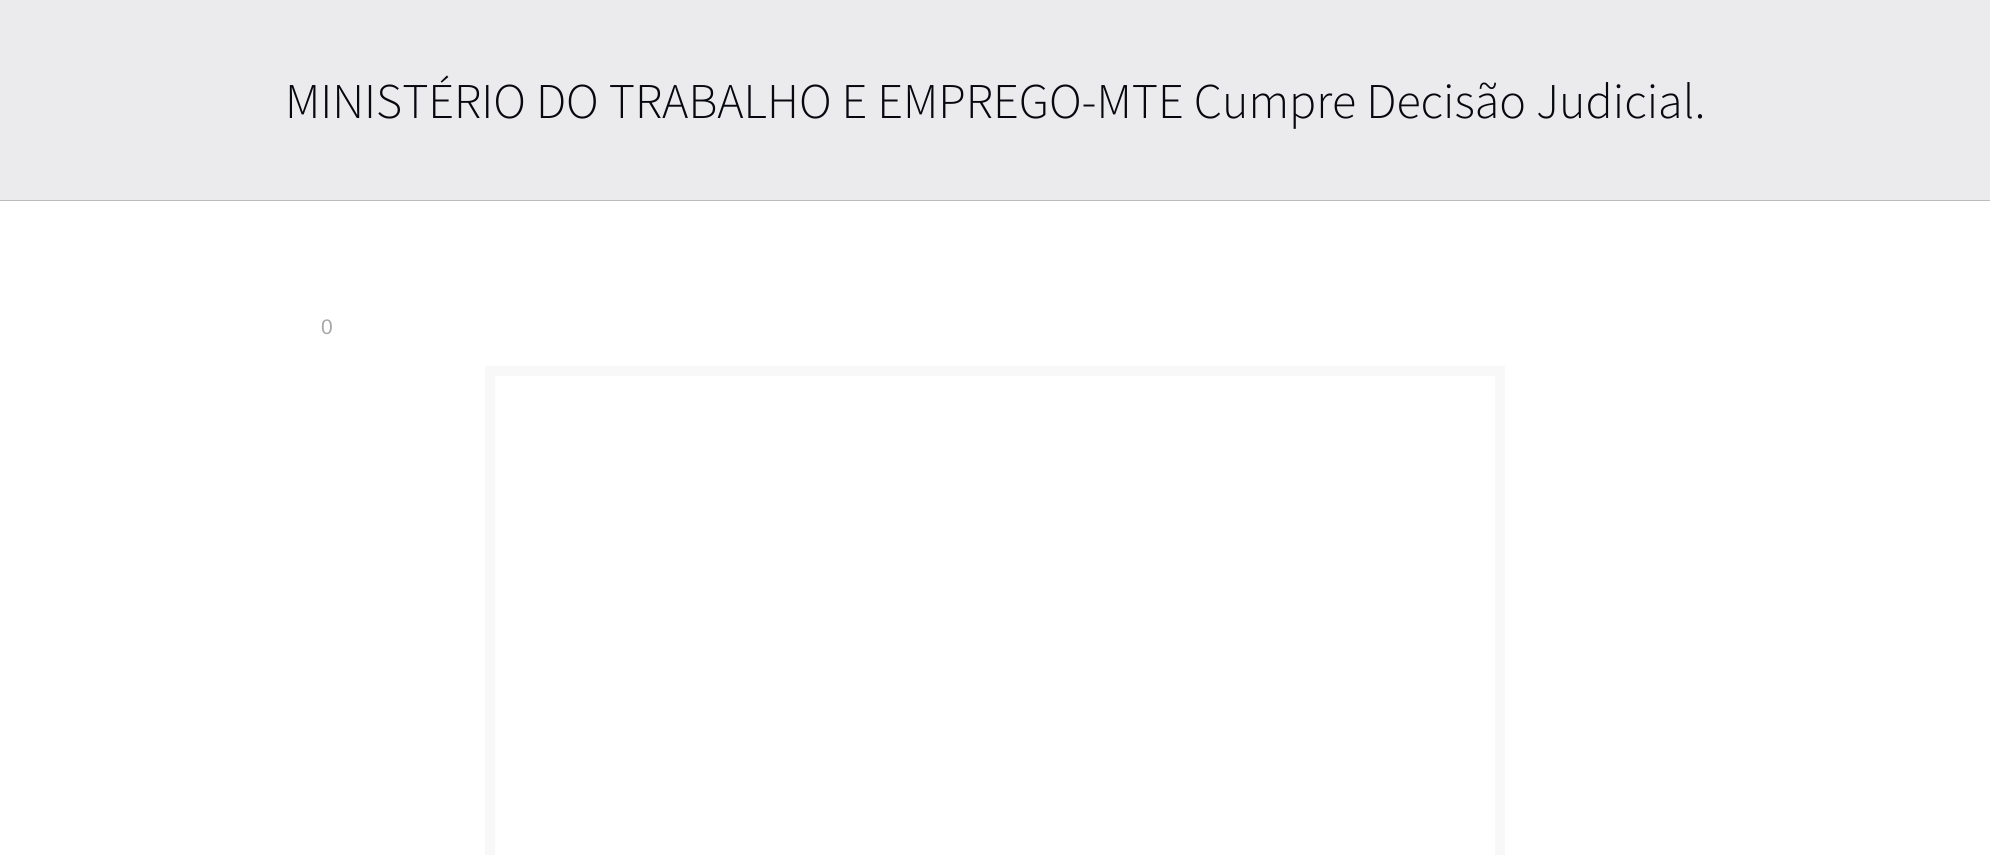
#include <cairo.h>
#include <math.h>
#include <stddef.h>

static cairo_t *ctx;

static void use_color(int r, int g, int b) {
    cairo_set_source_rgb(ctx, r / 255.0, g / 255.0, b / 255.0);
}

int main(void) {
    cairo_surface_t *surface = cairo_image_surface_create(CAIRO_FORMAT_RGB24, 1990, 855);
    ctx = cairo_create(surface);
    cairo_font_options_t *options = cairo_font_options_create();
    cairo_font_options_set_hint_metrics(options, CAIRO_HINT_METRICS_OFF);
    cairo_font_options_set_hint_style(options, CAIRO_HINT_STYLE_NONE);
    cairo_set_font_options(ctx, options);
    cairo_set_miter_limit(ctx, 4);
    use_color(255, 255, 255);
    cairo_paint(ctx);
    use_color(235, 235, 237);
    cairo_rectangle(ctx, 0, 0, 1990, 200);
    cairo_fill(ctx);
    use_color(187, 188, 191);
    cairo_rectangle(ctx, 0, 200, 1990, 1);
    cairo_fill(ctx);
    cairo_select_font_face(ctx, "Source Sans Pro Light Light", CAIRO_FONT_SLANT_NORMAL, CAIRO_FONT_WEIGHT_NORMAL);
    cairo_set_font_size(ctx, 50);
    use_color(7, 8, 15);
    cairo_move_to(ctx, 285, 118);
    cairo_show_text(ctx, "MINISTÉRIO DO TRABALHO E EMPREGO-MTE Cumpre Decisão Judicial.");
    cairo_select_font_face(ctx, "Liberation Sans", CAIRO_FONT_SLANT_NORMAL, CAIRO_FONT_WEIGHT_NORMAL);
    cairo_set_font_size(ctx, 21);
    use_color(168, 168, 168);
    cairo_move_to(ctx, 321, 334);
    cairo_show_text(ctx, "0");
    cairo_rectangle(ctx, 490, 371, 1010, 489);
    use_color(248, 248, 248);
    cairo_set_line_width(ctx, 10);
    cairo_stroke(ctx);
    cairo_surface_write_to_png(surface, "result.png");
    cairo_font_options_destroy(options);
    cairo_destroy(ctx);
    cairo_surface_destroy(surface);
    return 0;
}
